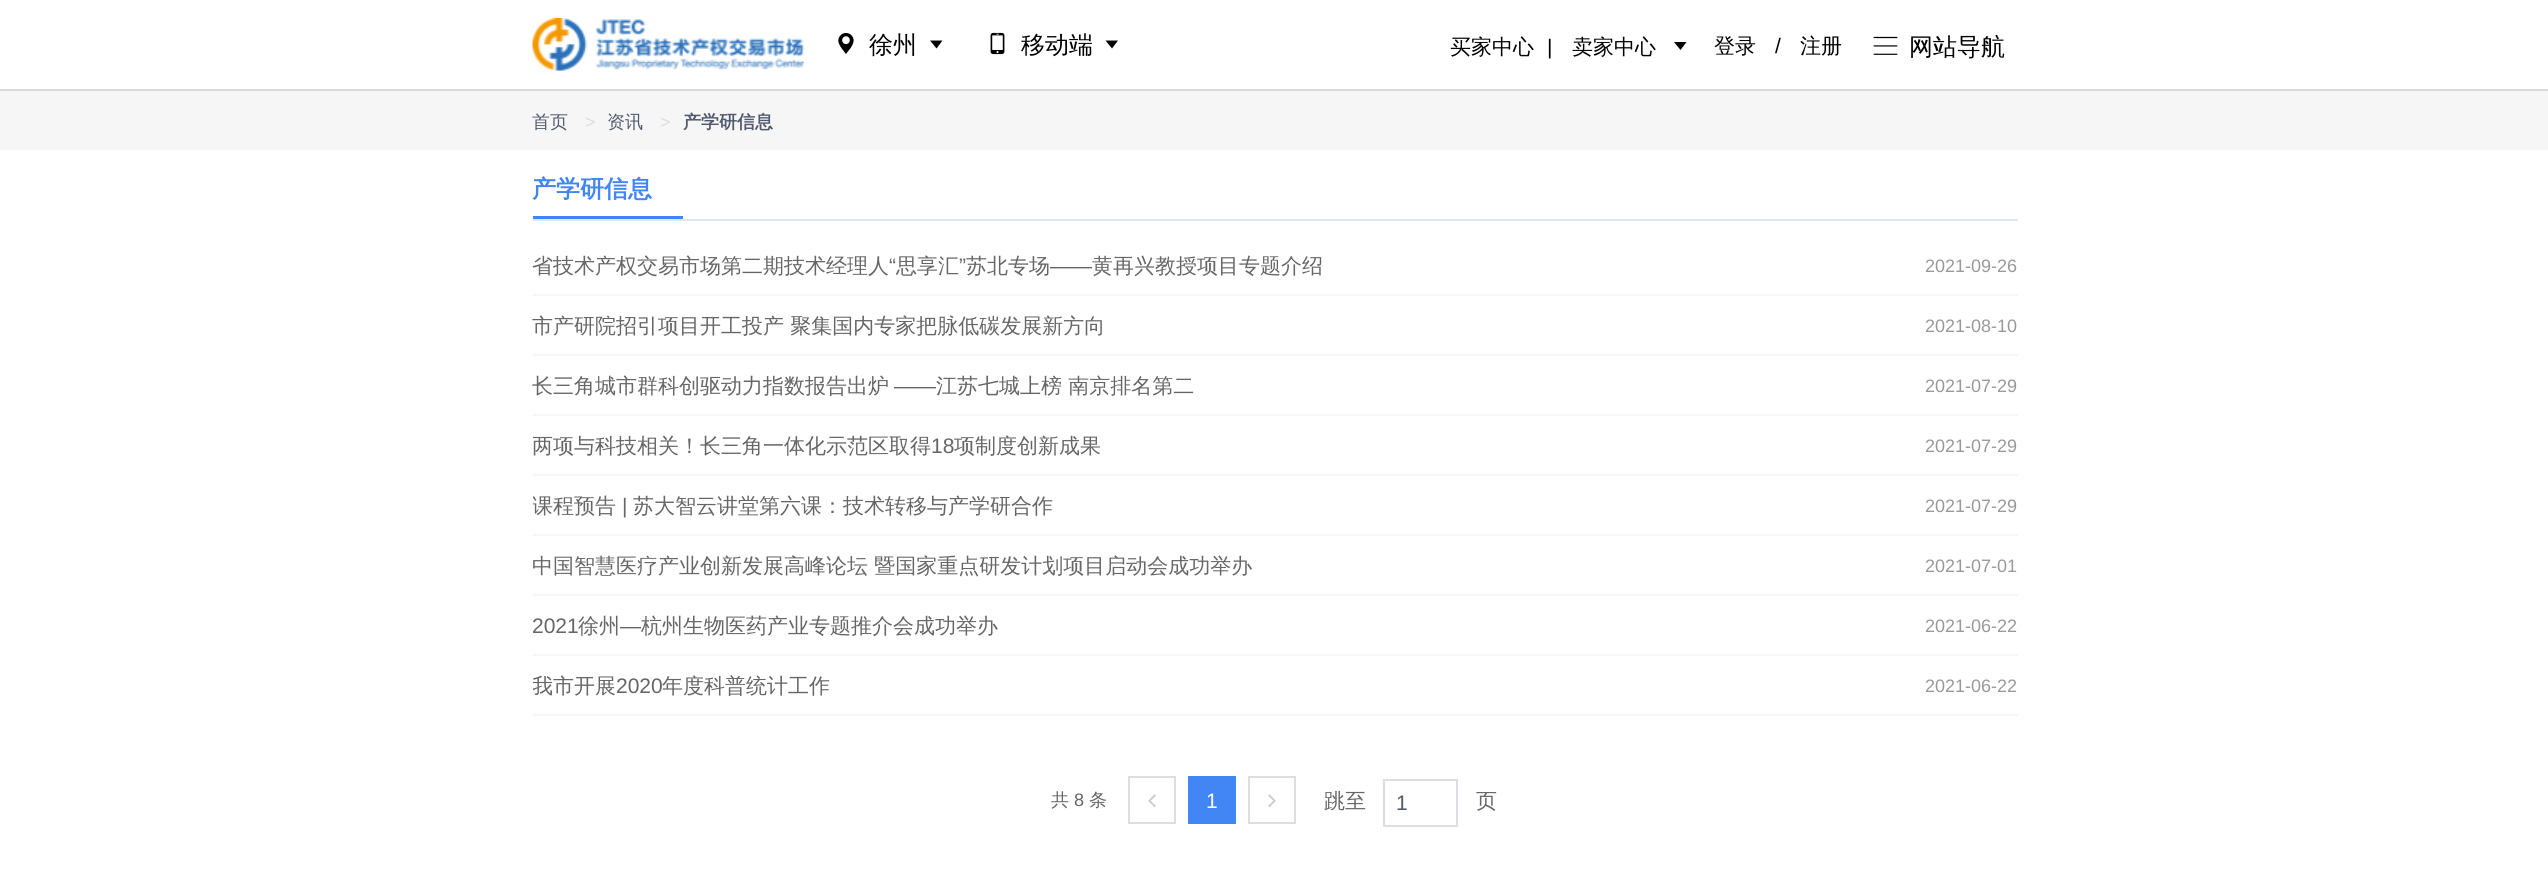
#include <cairo.h>
#include <math.h>
#include <stddef.h>

static cairo_t *ctx;

static void use_color(int r, int g, int b) {
    cairo_set_source_rgb(ctx, r / 255.0, g / 255.0, b / 255.0);
}

static void picture(const char *path, double x, double y, double w, double h) {
    cairo_surface_t *image = cairo_image_surface_create_from_png(path);
    cairo_save(ctx);
    cairo_set_source_surface(ctx, image, x, y);
    cairo_rectangle(ctx, x, y, w, h);
    cairo_fill(ctx);
    cairo_restore(ctx);
    cairo_surface_destroy(image);
}

int main(void) {
    cairo_surface_t *surface = cairo_image_surface_create(CAIRO_FORMAT_RGB24, 2548, 879);
    ctx = cairo_create(surface);
    cairo_font_options_t *options = cairo_font_options_create();
    cairo_font_options_set_hint_metrics(options, CAIRO_HINT_METRICS_OFF);
    cairo_font_options_set_hint_style(options, CAIRO_HINT_STYLE_NONE);
    cairo_set_font_options(ctx, options);
    cairo_set_miter_limit(ctx, 4);
    use_color(255, 255, 255);
    cairo_paint(ctx);
    use_color(217, 217, 217);
    cairo_rectangle(ctx, 0, 89, 2548, 2);
    cairo_fill(ctx);
    picture("img1.png", 532, 18, 272, 53);
    picture("img2.png", 838, 33, 16, 21);
    cairo_select_font_face(ctx, "WenQuanYi Zen Hei Medium", CAIRO_FONT_SLANT_NORMAL, CAIRO_FONT_WEIGHT_NORMAL);
    cairo_set_font_size(ctx, 24);
    use_color(0, 0, 0);
    cairo_move_to(ctx, 869, 53);
    cairo_show_text(ctx, "徐州");
    cairo_new_path(ctx);
    cairo_move_to(ctx, 942.5, 40.5);
    cairo_line_to(ctx, 936.5, 48.5);
    cairo_line_to(ctx, 930, 40.5);
    cairo_close_path(ctx);
    cairo_fill(ctx);
    picture("img3.png", 990, 32, 15, 23);
    cairo_move_to(ctx, 1021, 53);
    cairo_show_text(ctx, "移动端");
    cairo_new_path(ctx);
    cairo_move_to(ctx, 1118, 40.5);
    cairo_line_to(ctx, 1112, 48.5);
    cairo_line_to(ctx, 1105.5, 40.5);
    cairo_close_path(ctx);
    cairo_fill(ctx);
    cairo_set_font_size(ctx, 21);
    cairo_move_to(ctx, 1450, 54);
    cairo_show_text(ctx, "买家中心");
    cairo_select_font_face(ctx, "Liberation Sans", CAIRO_FONT_SLANT_NORMAL, CAIRO_FONT_WEIGHT_NORMAL);
    cairo_move_to(ctx, 1547, 54);
    cairo_show_text(ctx, "|");
    cairo_select_font_face(ctx, "WenQuanYi Zen Hei Medium", CAIRO_FONT_SLANT_NORMAL, CAIRO_FONT_WEIGHT_NORMAL);
    cairo_move_to(ctx, 1572, 54);
    cairo_show_text(ctx, "卖家中心");
    cairo_new_path(ctx);
    cairo_move_to(ctx, 1686.5, 42);
    cairo_line_to(ctx, 1680.5, 50);
    cairo_line_to(ctx, 1674, 42);
    cairo_close_path(ctx);
    cairo_fill(ctx);
    cairo_move_to(ctx, 1714, 53);
    cairo_show_text(ctx, "登录");
    cairo_select_font_face(ctx, "Liberation Sans", CAIRO_FONT_SLANT_NORMAL, CAIRO_FONT_WEIGHT_NORMAL);
    cairo_move_to(ctx, 1775, 53);
    cairo_show_text(ctx, "/");
    cairo_select_font_face(ctx, "WenQuanYi Zen Hei Medium", CAIRO_FONT_SLANT_NORMAL, CAIRO_FONT_WEIGHT_NORMAL);
    cairo_move_to(ctx, 1800, 53);
    cairo_show_text(ctx, "注册");
    picture("img4.png", 1873, 36, 25, 19);
    cairo_set_font_size(ctx, 24);
    cairo_move_to(ctx, 1909, 55);
    cairo_show_text(ctx, "网站导航");
    use_color(246, 246, 246);
    cairo_rectangle(ctx, 0, 91, 2548, 59);
    cairo_fill(ctx);
    cairo_set_font_size(ctx, 18);
    use_color(81, 90, 110);
    cairo_move_to(ctx, 532, 128);
    cairo_show_text(ctx, "首页");
    cairo_select_font_face(ctx, "Liberation Sans", CAIRO_FONT_SLANT_NORMAL, CAIRO_FONT_WEIGHT_NORMAL);
    use_color(220, 222, 226);
    cairo_move_to(ctx, 585, 128);
    cairo_show_text(ctx, ">");
    cairo_select_font_face(ctx, "WenQuanYi Zen Hei Medium", CAIRO_FONT_SLANT_NORMAL, CAIRO_FONT_WEIGHT_NORMAL);
    use_color(81, 90, 110);
    cairo_move_to(ctx, 607, 128);
    cairo_show_text(ctx, "资讯");
    cairo_select_font_face(ctx, "Liberation Sans", CAIRO_FONT_SLANT_NORMAL, CAIRO_FONT_WEIGHT_NORMAL);
    use_color(220, 222, 226);
    cairo_move_to(ctx, 660, 128);
    cairo_show_text(ctx, ">");
    cairo_select_font_face(ctx, "WenQuanYi Zen Hei", CAIRO_FONT_SLANT_NORMAL, CAIRO_FONT_WEIGHT_BOLD);
    use_color(81, 90, 110);
    cairo_move_to(ctx, 683, 128);
    cairo_show_text(ctx, "产学研信息");
    use_color(224, 229, 239);
    cairo_rectangle(ctx, 533, 219, 1485, 2);
    cairo_fill(ctx);
    use_color(66, 133, 244);
    cairo_rectangle(ctx, 533, 216, 150, 3);
    cairo_fill(ctx);
    cairo_set_font_size(ctx, 24);
    cairo_move_to(ctx, 532, 197);
    cairo_show_text(ctx, "产学研信息");
    use_color(246, 246, 246);
    cairo_rectangle(ctx, 533, 294, 1485, 2);
    cairo_fill(ctx);
    cairo_select_font_face(ctx, "WenQuanYi Zen Hei Medium", CAIRO_FONT_SLANT_NORMAL, CAIRO_FONT_WEIGHT_NORMAL);
    cairo_set_font_size(ctx, 21);
    use_color(102, 102, 102);
    cairo_move_to(ctx, 532, 273);
    cairo_show_text(ctx, "省技术产权交易市场第二期技术经理人");
    cairo_select_font_face(ctx, "Liberation Sans", CAIRO_FONT_SLANT_NORMAL, CAIRO_FONT_WEIGHT_NORMAL);
    cairo_move_to(ctx, 889, 273);
    cairo_show_text(ctx, "“");
    cairo_select_font_face(ctx, "WenQuanYi Zen Hei Medium", CAIRO_FONT_SLANT_NORMAL, CAIRO_FONT_WEIGHT_NORMAL);
    cairo_move_to(ctx, 896, 273);
    cairo_show_text(ctx, "思享汇");
    cairo_select_font_face(ctx, "Liberation Sans", CAIRO_FONT_SLANT_NORMAL, CAIRO_FONT_WEIGHT_NORMAL);
    cairo_move_to(ctx, 959, 273);
    cairo_show_text(ctx, "”");
    cairo_select_font_face(ctx, "WenQuanYi Zen Hei Medium", CAIRO_FONT_SLANT_NORMAL, CAIRO_FONT_WEIGHT_NORMAL);
    cairo_move_to(ctx, 966, 273);
    cairo_show_text(ctx, "苏北专场");
    cairo_move_to(ctx, 1092, 273);
    cairo_show_text(ctx, "黄再兴教授项目专题介绍");
    cairo_select_font_face(ctx, "Liberation Sans", CAIRO_FONT_SLANT_NORMAL, CAIRO_FONT_WEIGHT_NORMAL);
    cairo_move_to(ctx, 1050, 273);
    cairo_show_text(ctx, "——");
    cairo_set_font_size(ctx, 18);
    use_color(153, 153, 153);
    cairo_move_to(ctx, 1925, 272);
    cairo_show_text(ctx, "2021-09-26");
    use_color(246, 246, 246);
    cairo_rectangle(ctx, 533, 354, 1485, 2);
    cairo_fill(ctx);
    cairo_select_font_face(ctx, "WenQuanYi Zen Hei Medium", CAIRO_FONT_SLANT_NORMAL, CAIRO_FONT_WEIGHT_NORMAL);
    cairo_set_font_size(ctx, 21);
    use_color(102, 102, 102);
    cairo_move_to(ctx, 532, 333);
    cairo_show_text(ctx, "市产研院招引项目开工投产 聚集国内专家把脉低碳发展新方向");
    cairo_select_font_face(ctx, "Liberation Sans", CAIRO_FONT_SLANT_NORMAL, CAIRO_FONT_WEIGHT_NORMAL);
    cairo_set_font_size(ctx, 18);
    use_color(153, 153, 153);
    cairo_move_to(ctx, 1925, 332);
    cairo_show_text(ctx, "2021-08-10");
    use_color(246, 246, 246);
    cairo_rectangle(ctx, 533, 414, 1485, 2);
    cairo_fill(ctx);
    cairo_select_font_face(ctx, "WenQuanYi Zen Hei Medium", CAIRO_FONT_SLANT_NORMAL, CAIRO_FONT_WEIGHT_NORMAL);
    cairo_set_font_size(ctx, 21);
    use_color(102, 102, 102);
    cairo_move_to(ctx, 532, 393);
    cairo_show_text(ctx, "长三角城市群科创驱动力指数报告出炉");
    cairo_select_font_face(ctx, "Liberation Sans", CAIRO_FONT_SLANT_NORMAL, CAIRO_FONT_WEIGHT_NORMAL);
    cairo_move_to(ctx, 894, 393);
    cairo_show_text(ctx, "——");
    cairo_select_font_face(ctx, "WenQuanYi Zen Hei Medium", CAIRO_FONT_SLANT_NORMAL, CAIRO_FONT_WEIGHT_NORMAL);
    cairo_move_to(ctx, 936, 393);
    cairo_show_text(ctx, "江苏七城上榜 南京排名第二");
    cairo_select_font_face(ctx, "Liberation Sans", CAIRO_FONT_SLANT_NORMAL, CAIRO_FONT_WEIGHT_NORMAL);
    cairo_set_font_size(ctx, 18);
    use_color(153, 153, 153);
    cairo_move_to(ctx, 1925, 392);
    cairo_show_text(ctx, "2021-07-29");
    use_color(246, 246, 246);
    cairo_rectangle(ctx, 533, 474, 1485, 2);
    cairo_fill(ctx);
    cairo_save(ctx);
    cairo_rectangle(ctx, 533, 416, 1350, 58);
    cairo_clip(ctx);
    cairo_select_font_face(ctx, "WenQuanYi Zen Hei Medium", CAIRO_FONT_SLANT_NORMAL, CAIRO_FONT_WEIGHT_NORMAL);
    cairo_set_font_size(ctx, 21);
    use_color(102, 102, 102);
    cairo_move_to(ctx, 532, 453);
    cairo_show_text(ctx, "两项与科技相关！长三角一体化示范区取得");
    cairo_restore(ctx);
    cairo_set_font_size(ctx, 21);
    use_color(102, 102, 102);
    cairo_move_to(ctx, 931, 453);
    cairo_show_text(ctx, "18");
    cairo_select_font_face(ctx, "WenQuanYi Zen Hei Medium", CAIRO_FONT_SLANT_NORMAL, CAIRO_FONT_WEIGHT_NORMAL);
    cairo_move_to(ctx, 954, 453);
    cairo_show_text(ctx, "项制度创新成果");
    cairo_select_font_face(ctx, "Liberation Sans", CAIRO_FONT_SLANT_NORMAL, CAIRO_FONT_WEIGHT_NORMAL);
    cairo_set_font_size(ctx, 18);
    use_color(153, 153, 153);
    cairo_move_to(ctx, 1925, 452);
    cairo_show_text(ctx, "2021-07-29");
    use_color(246, 246, 246);
    cairo_rectangle(ctx, 533, 534, 1485, 2);
    cairo_fill(ctx);
    cairo_save(ctx);
    cairo_rectangle(ctx, 533, 476, 1350, 58);
    cairo_clip(ctx);
    cairo_select_font_face(ctx, "WenQuanYi Zen Hei Medium", CAIRO_FONT_SLANT_NORMAL, CAIRO_FONT_WEIGHT_NORMAL);
    cairo_set_font_size(ctx, 21);
    use_color(102, 102, 102);
    cairo_move_to(ctx, 532, 513);
    cairo_show_text(ctx, "课程预告");
    cairo_restore(ctx);
    cairo_set_font_size(ctx, 21);
    use_color(102, 102, 102);
    cairo_move_to(ctx, 622, 513);
    cairo_show_text(ctx, "|");
    cairo_select_font_face(ctx, "WenQuanYi Zen Hei Medium", CAIRO_FONT_SLANT_NORMAL, CAIRO_FONT_WEIGHT_NORMAL);
    cairo_move_to(ctx, 633, 513);
    cairo_show_text(ctx, "苏大智云讲堂第六课：技术转移与产学研合作");
    cairo_select_font_face(ctx, "Liberation Sans", CAIRO_FONT_SLANT_NORMAL, CAIRO_FONT_WEIGHT_NORMAL);
    cairo_set_font_size(ctx, 18);
    use_color(153, 153, 153);
    cairo_move_to(ctx, 1925, 512);
    cairo_show_text(ctx, "2021-07-29");
    use_color(246, 246, 246);
    cairo_rectangle(ctx, 533, 594, 1485, 2);
    cairo_fill(ctx);
    cairo_save(ctx);
    cairo_rectangle(ctx, 533, 536, 1350, 58);
    cairo_clip(ctx);
    cairo_select_font_face(ctx, "WenQuanYi Zen Hei Medium", CAIRO_FONT_SLANT_NORMAL, CAIRO_FONT_WEIGHT_NORMAL);
    cairo_set_font_size(ctx, 21);
    use_color(102, 102, 102);
    cairo_move_to(ctx, 532, 573);
    cairo_show_text(ctx, "中国智慧医疗产业创新发展高峰论坛 暨国家重点研发计划项目启动会成功举办");
    cairo_restore(ctx);
    use_color(153, 153, 153);
    cairo_move_to(ctx, 1925, 572);
    cairo_show_text(ctx, "2021-07-01");
    use_color(246, 246, 246);
    cairo_rectangle(ctx, 533, 654, 1485, 2);
    cairo_fill(ctx);
    cairo_set_font_size(ctx, 21);
    use_color(102, 102, 102);
    cairo_move_to(ctx, 532, 633);
    cairo_show_text(ctx, "2021");
    cairo_select_font_face(ctx, "WenQuanYi Zen Hei Medium", CAIRO_FONT_SLANT_NORMAL, CAIRO_FONT_WEIGHT_NORMAL);
    cairo_move_to(ctx, 578, 633);
    cairo_show_text(ctx, "徐州");
    cairo_select_font_face(ctx, "Liberation Sans", CAIRO_FONT_SLANT_NORMAL, CAIRO_FONT_WEIGHT_NORMAL);
    cairo_move_to(ctx, 620, 633);
    cairo_show_text(ctx, "—");
    cairo_select_font_face(ctx, "WenQuanYi Zen Hei Medium", CAIRO_FONT_SLANT_NORMAL, CAIRO_FONT_WEIGHT_NORMAL);
    cairo_move_to(ctx, 641, 633);
    cairo_show_text(ctx, "杭州生物医药产业专题推介会成功举办");
    cairo_select_font_face(ctx, "Liberation Sans", CAIRO_FONT_SLANT_NORMAL, CAIRO_FONT_WEIGHT_NORMAL);
    cairo_set_font_size(ctx, 18);
    use_color(153, 153, 153);
    cairo_move_to(ctx, 1925, 632);
    cairo_show_text(ctx, "2021-06-22");
    use_color(246, 246, 246);
    cairo_rectangle(ctx, 533, 714, 1485, 2);
    cairo_fill(ctx);
    cairo_save(ctx);
    cairo_rectangle(ctx, 533, 656, 1350, 58);
    cairo_clip(ctx);
    cairo_select_font_face(ctx, "WenQuanYi Zen Hei Medium", CAIRO_FONT_SLANT_NORMAL, CAIRO_FONT_WEIGHT_NORMAL);
    cairo_set_font_size(ctx, 21);
    use_color(102, 102, 102);
    cairo_move_to(ctx, 532, 693);
    cairo_show_text(ctx, "我市开展");
    cairo_restore(ctx);
    cairo_set_font_size(ctx, 21);
    use_color(102, 102, 102);
    cairo_move_to(ctx, 616, 693);
    cairo_show_text(ctx, "2020");
    cairo_select_font_face(ctx, "WenQuanYi Zen Hei Medium", CAIRO_FONT_SLANT_NORMAL, CAIRO_FONT_WEIGHT_NORMAL);
    cairo_move_to(ctx, 662, 693);
    cairo_show_text(ctx, "年度科普统计工作");
    cairo_select_font_face(ctx, "Liberation Sans", CAIRO_FONT_SLANT_NORMAL, CAIRO_FONT_WEIGHT_NORMAL);
    cairo_set_font_size(ctx, 18);
    use_color(153, 153, 153);
    cairo_move_to(ctx, 1925, 692);
    cairo_show_text(ctx, "2021-06-22");
    cairo_select_font_face(ctx, "WenQuanYi Zen Hei Medium", CAIRO_FONT_SLANT_NORMAL, CAIRO_FONT_WEIGHT_NORMAL);
    use_color(102, 102, 102);
    cairo_move_to(ctx, 1051, 806);
    cairo_show_text(ctx, "共");
    cairo_select_font_face(ctx, "Liberation Sans", CAIRO_FONT_SLANT_NORMAL, CAIRO_FONT_WEIGHT_NORMAL);
    cairo_move_to(ctx, 1074, 806);
    cairo_show_text(ctx, "8");
    cairo_select_font_face(ctx, "WenQuanYi Zen Hei Medium", CAIRO_FONT_SLANT_NORMAL, CAIRO_FONT_WEIGHT_NORMAL);
    cairo_move_to(ctx, 1089, 806);
    cairo_show_text(ctx, "条");
    cairo_rectangle(ctx, 1129, 777, 46, 46);
    use_color(220, 222, 226);
    cairo_stroke(ctx);
    picture("img5.png", 1148, 794, 8, 14);
    use_color(66, 133, 244);
    cairo_rectangle(ctx, 1188, 776, 48, 48);
    cairo_fill(ctx);
    cairo_select_font_face(ctx, "Liberation Sans", CAIRO_FONT_SLANT_NORMAL, CAIRO_FONT_WEIGHT_NORMAL);
    cairo_set_font_size(ctx, 21);
    use_color(255, 255, 255);
    cairo_move_to(ctx, 1206, 808);
    cairo_show_text(ctx, "1");
    cairo_rectangle(ctx, 1249, 777, 46, 46);
    use_color(220, 222, 226);
    cairo_stroke(ctx);
    picture("img6.png", 1268, 794, 8, 14);
    cairo_select_font_face(ctx, "WenQuanYi Zen Hei Medium", CAIRO_FONT_SLANT_NORMAL, CAIRO_FONT_WEIGHT_NORMAL);
    use_color(102, 102, 102);
    cairo_move_to(ctx, 1324, 808);
    cairo_show_text(ctx, "跳至");
    cairo_rectangle(ctx, 1384, 780, 73, 46);
    use_color(220, 222, 226);
    cairo_stroke(ctx);
    cairo_select_font_face(ctx, "Liberation Sans", CAIRO_FONT_SLANT_NORMAL, CAIRO_FONT_WEIGHT_NORMAL);
    use_color(81, 90, 110);
    cairo_move_to(ctx, 1396, 810);
    cairo_show_text(ctx, "1");
    cairo_select_font_face(ctx, "WenQuanYi Zen Hei Medium", CAIRO_FONT_SLANT_NORMAL, CAIRO_FONT_WEIGHT_NORMAL);
    use_color(102, 102, 102);
    cairo_move_to(ctx, 1476, 808);
    cairo_show_text(ctx, "页");
    cairo_surface_write_to_png(surface, "result.png");
    cairo_font_options_destroy(options);
    cairo_destroy(ctx);
    cairo_surface_destroy(surface);
    return 0;
}
